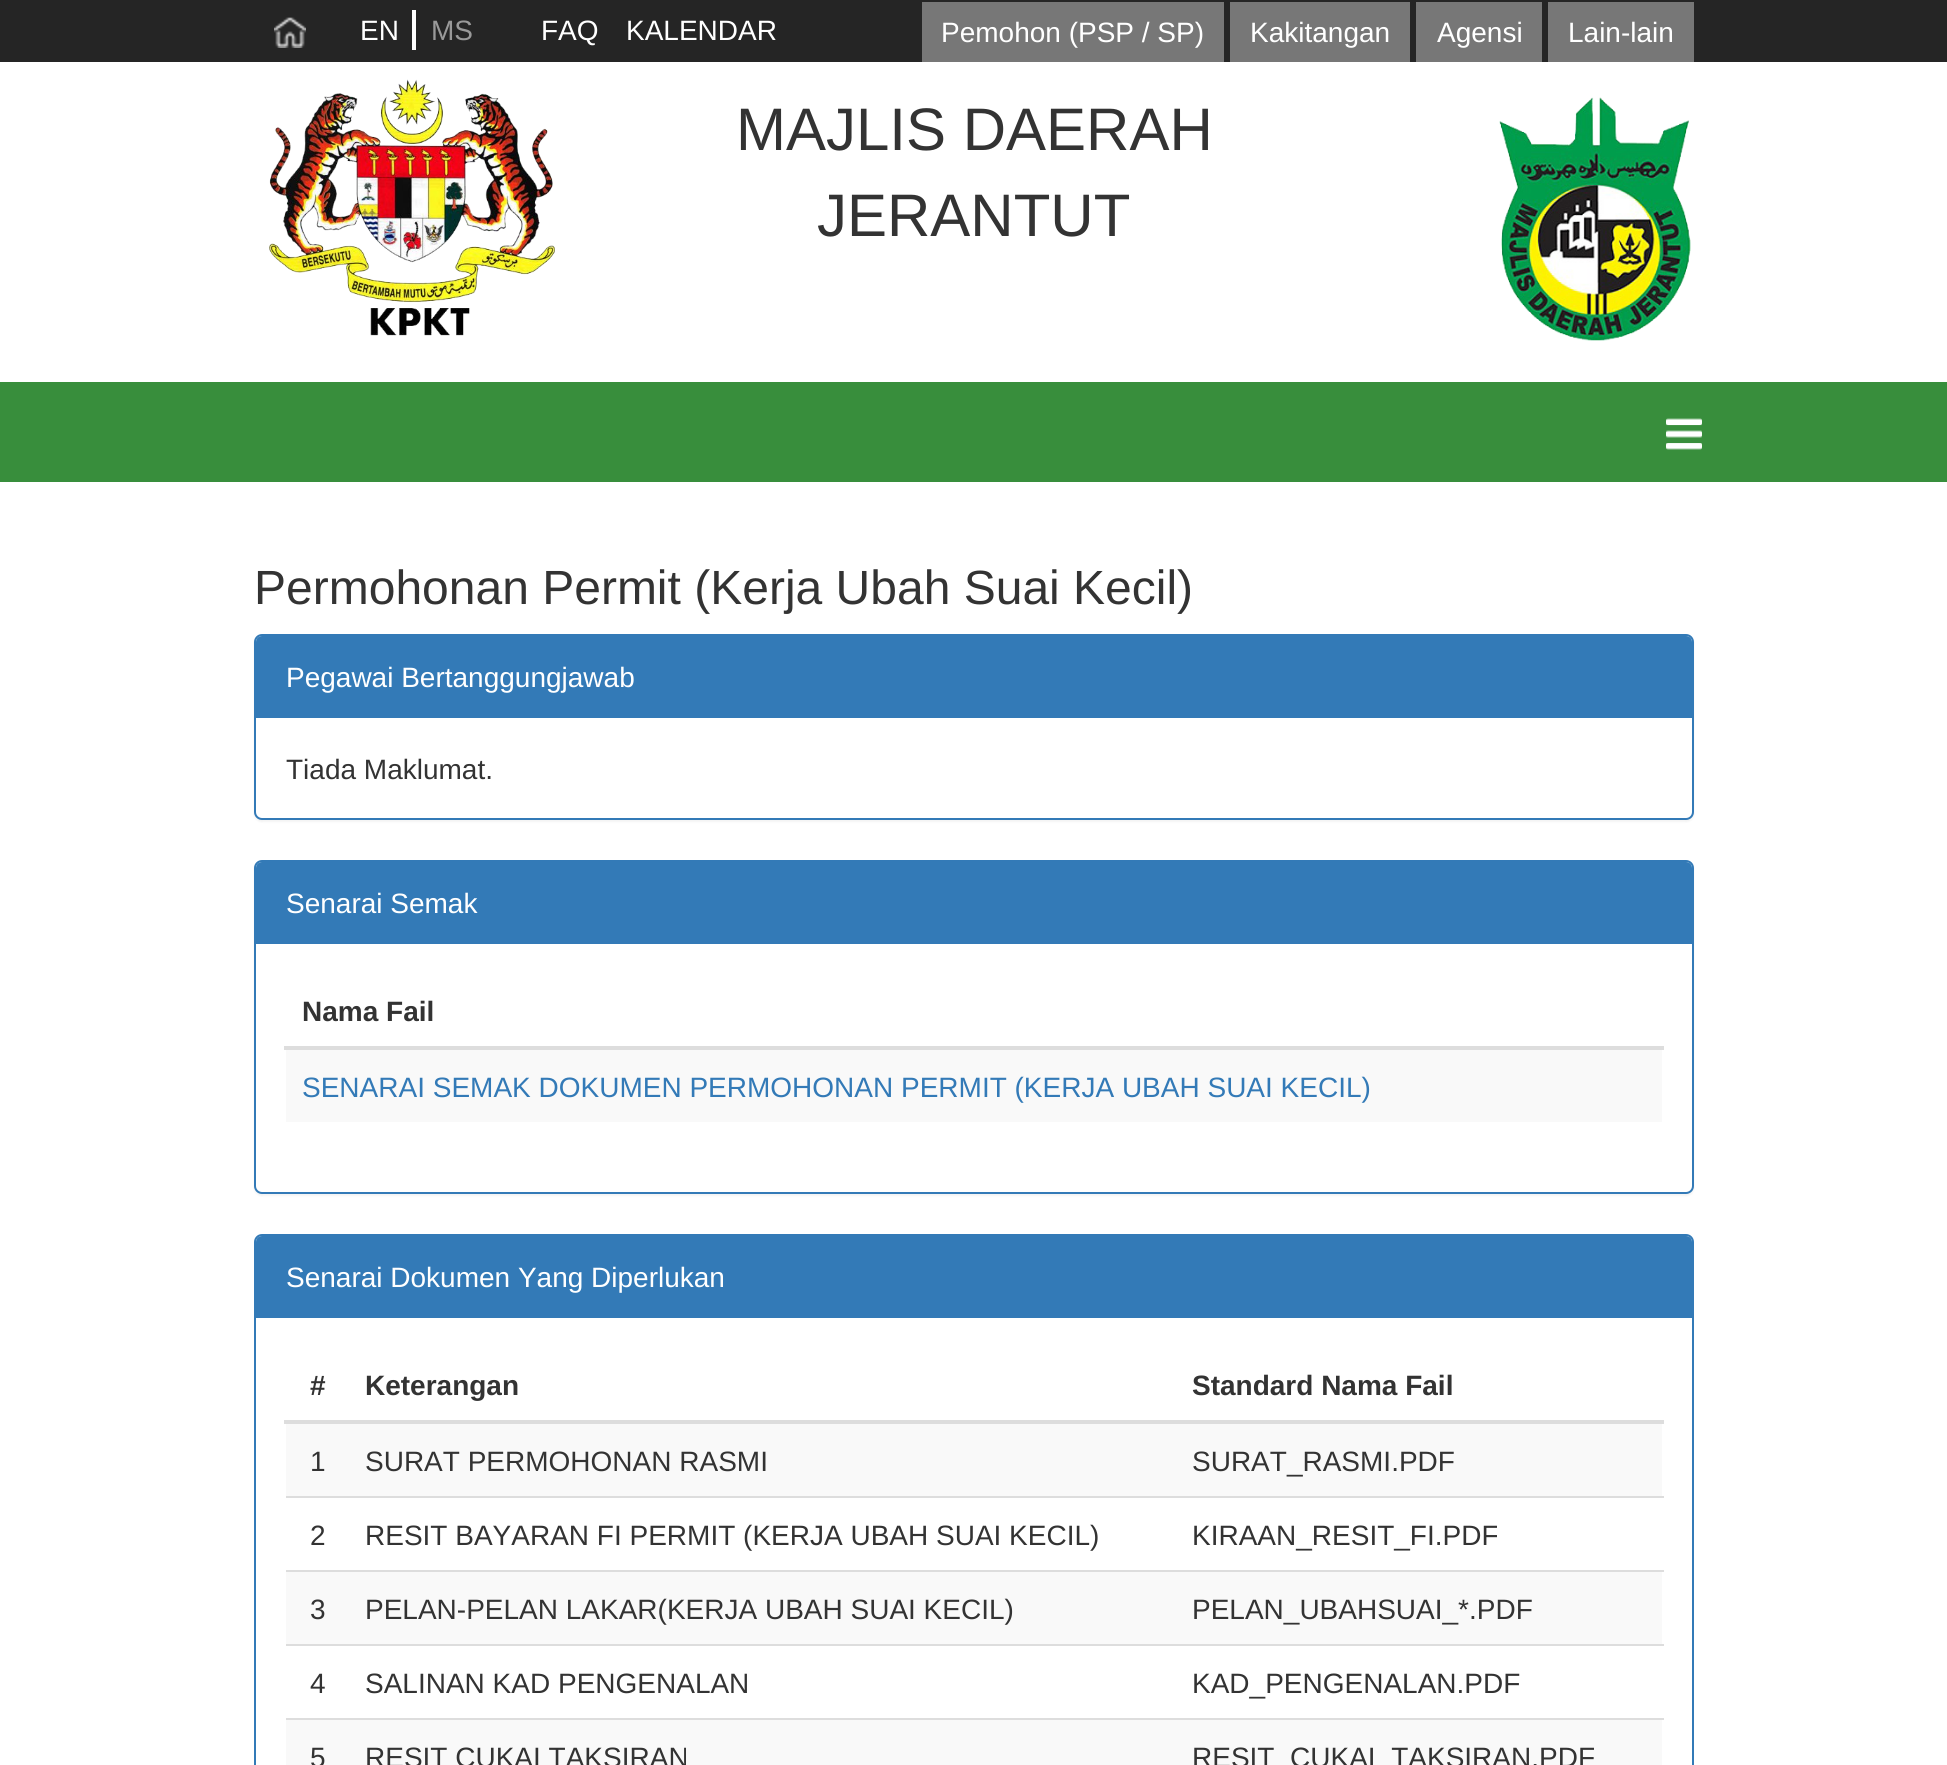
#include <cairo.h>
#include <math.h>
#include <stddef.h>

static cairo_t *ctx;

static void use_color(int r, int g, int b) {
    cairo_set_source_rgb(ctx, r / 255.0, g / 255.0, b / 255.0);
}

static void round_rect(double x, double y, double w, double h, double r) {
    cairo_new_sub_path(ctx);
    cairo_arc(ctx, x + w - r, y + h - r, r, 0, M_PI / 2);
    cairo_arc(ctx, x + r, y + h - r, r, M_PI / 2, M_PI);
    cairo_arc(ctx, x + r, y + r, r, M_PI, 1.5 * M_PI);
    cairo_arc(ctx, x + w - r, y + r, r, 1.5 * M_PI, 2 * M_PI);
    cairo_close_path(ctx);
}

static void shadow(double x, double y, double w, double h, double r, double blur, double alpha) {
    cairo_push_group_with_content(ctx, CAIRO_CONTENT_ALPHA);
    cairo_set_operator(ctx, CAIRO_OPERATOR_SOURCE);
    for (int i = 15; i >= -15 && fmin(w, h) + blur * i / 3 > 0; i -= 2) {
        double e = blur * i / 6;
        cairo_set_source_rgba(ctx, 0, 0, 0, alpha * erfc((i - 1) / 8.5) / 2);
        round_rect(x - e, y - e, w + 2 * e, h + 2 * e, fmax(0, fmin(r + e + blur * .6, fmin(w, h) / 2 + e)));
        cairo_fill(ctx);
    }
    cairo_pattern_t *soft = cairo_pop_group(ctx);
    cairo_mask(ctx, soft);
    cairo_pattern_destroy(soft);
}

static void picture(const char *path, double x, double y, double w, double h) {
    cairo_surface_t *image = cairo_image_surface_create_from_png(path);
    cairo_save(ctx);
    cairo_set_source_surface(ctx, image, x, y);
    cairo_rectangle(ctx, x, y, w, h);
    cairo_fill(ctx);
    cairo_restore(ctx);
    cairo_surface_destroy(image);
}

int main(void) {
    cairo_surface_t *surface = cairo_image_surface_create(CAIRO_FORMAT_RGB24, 1947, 1765);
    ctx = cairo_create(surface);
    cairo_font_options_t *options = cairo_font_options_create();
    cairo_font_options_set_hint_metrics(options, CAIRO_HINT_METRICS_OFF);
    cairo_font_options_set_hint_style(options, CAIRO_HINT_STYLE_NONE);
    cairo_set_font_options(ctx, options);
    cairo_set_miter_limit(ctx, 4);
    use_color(255, 255, 255);
    cairo_paint(ctx);
    use_color(37, 37, 37);
    cairo_rectangle(ctx, 0, 0, 1947, 62);
    cairo_fill(ctx);
    picture("img1.png", 274, 17, 32, 31);
    cairo_select_font_face(ctx, "Liberation Sans", CAIRO_FONT_SLANT_NORMAL, CAIRO_FONT_WEIGHT_NORMAL);
    cairo_set_font_size(ctx, 28);
    use_color(255, 255, 255);
    cairo_move_to(ctx, 360, 40);
    cairo_show_text(ctx, "EN");
    cairo_rectangle(ctx, 412, 10, 4, 40);
    cairo_fill(ctx);
    use_color(153, 153, 153);
    cairo_move_to(ctx, 431, 40);
    cairo_show_text(ctx, "MS");
    use_color(255, 255, 255);
    cairo_move_to(ctx, 541, 40);
    cairo_show_text(ctx, "FAQ");
    cairo_move_to(ctx, 626, 40);
    cairo_show_text(ctx, "KALENDAR");
    use_color(119, 119, 119);
    cairo_rectangle(ctx, 922, 2, 302, 60);
    cairo_fill(ctx);
    use_color(255, 255, 255);
    cairo_move_to(ctx, 941, 42);
    cairo_show_text(ctx, "Pemohon (PSP / SP)");
    use_color(119, 119, 119);
    cairo_rectangle(ctx, 1230, 2, 180, 60);
    cairo_fill(ctx);
    use_color(255, 255, 255);
    cairo_move_to(ctx, 1250, 42);
    cairo_show_text(ctx, "Kakitangan");
    use_color(119, 119, 119);
    cairo_rectangle(ctx, 1416, 2, 126, 60);
    cairo_fill(ctx);
    use_color(255, 255, 255);
    cairo_move_to(ctx, 1437, 42);
    cairo_show_text(ctx, "Agensi");
    use_color(119, 119, 119);
    cairo_rectangle(ctx, 1548, 2, 146, 60);
    cairo_fill(ctx);
    use_color(255, 255, 255);
    cairo_move_to(ctx, 1568, 42);
    cairo_show_text(ctx, "Lain-lain");
    picture("img2.png", 269, 79, 286, 257);
    cairo_set_font_size(ctx, 60);
    use_color(51, 51, 51);
    cairo_move_to(ctx, 736, 150);
    cairo_show_text(ctx, "MAJLIS DAERAH");
    cairo_move_to(ctx, 817, 236);
    cairo_show_text(ctx, "JERANTUT");
    picture("img3.png", 1499, 97, 192, 244);
    use_color(56, 142, 60);
    cairo_rectangle(ctx, 0, 382, 1947, 100);
    cairo_fill(ctx);
    picture("img4.png", 1666, 418, 36, 32);
    cairo_set_font_size(ctx, 48);
    use_color(51, 51, 51);
    cairo_move_to(ctx, 254, 604);
    cairo_show_text(ctx, "Permohonan Permit (Kerja Ubah Suai Kecil)");
    use_color(0, 0, 0);
    shadow(254, 636, 1440, 186, 8, 1, 0.05);
    use_color(255, 255, 255);
    round_rect(255, 635, 1438, 184, 7);
    cairo_fill_preserve(ctx);
    use_color(51, 122, 183);
    cairo_stroke(ctx);
    cairo_new_path(ctx);
    cairo_move_to(ctx, 262, 636);
    cairo_line_to(ctx, 1686, 636);
    cairo_curve_to(ctx, 1689.5, 636, 1692, 638.5, 1692, 642);
    cairo_line_to(ctx, 1692, 718);
    cairo_line_to(ctx, 256, 718);
    cairo_line_to(ctx, 256, 642);
    cairo_curve_to(ctx, 256, 638.5, 258.5, 636, 262, 636);
    cairo_close_path(ctx);
    cairo_fill(ctx);
    cairo_set_font_size(ctx, 28);
    use_color(255, 255, 255);
    cairo_move_to(ctx, 286, 687);
    cairo_show_text(ctx, "Pegawai Bertanggungjawab");
    use_color(51, 51, 51);
    cairo_move_to(ctx, 286, 779);
    cairo_show_text(ctx, "Tiada Maklumat.");
    use_color(0, 0, 0);
    shadow(254, 862, 1440, 334, 8, 1, 0.05);
    use_color(255, 255, 255);
    round_rect(255, 861, 1438, 332, 7);
    cairo_fill_preserve(ctx);
    use_color(51, 122, 183);
    cairo_stroke(ctx);
    cairo_new_path(ctx);
    cairo_move_to(ctx, 262, 862);
    cairo_line_to(ctx, 1686, 862);
    cairo_curve_to(ctx, 1689.5, 862, 1692, 864.5, 1692, 868);
    cairo_line_to(ctx, 1692, 944);
    cairo_line_to(ctx, 256, 944);
    cairo_line_to(ctx, 256, 868);
    cairo_curve_to(ctx, 256, 864.5, 258.5, 862, 262, 862);
    cairo_close_path(ctx);
    cairo_fill(ctx);
    use_color(255, 255, 255);
    cairo_move_to(ctx, 286, 913);
    cairo_show_text(ctx, "Senarai Semak");
    use_color(221, 221, 221);
    cairo_rectangle(ctx, 284, 1046, 1380, 4);
    cairo_fill(ctx);
    cairo_select_font_face(ctx, "Liberation Sans", CAIRO_FONT_SLANT_NORMAL, CAIRO_FONT_WEIGHT_BOLD);
    use_color(51, 51, 51);
    cairo_move_to(ctx, 302, 1021);
    cairo_show_text(ctx, "Nama Fail");
    use_color(249, 249, 249);
    cairo_rectangle(ctx, 286, 1050, 1376, 72);
    cairo_fill(ctx);
    cairo_select_font_face(ctx, "Liberation Sans", CAIRO_FONT_SLANT_NORMAL, CAIRO_FONT_WEIGHT_NORMAL);
    use_color(51, 122, 183);
    cairo_move_to(ctx, 302, 1097);
    cairo_show_text(ctx, "SENARAI SEMAK DOKUMEN PERMOHONAN PERMIT (KERJA UBAH SUAI KECIL)");
    round_rect(255, 1235, 1438, 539, 7);
    cairo_stroke(ctx);
    cairo_new_path(ctx);
    cairo_move_to(ctx, 262, 1236);
    cairo_line_to(ctx, 1686, 1236);
    cairo_curve_to(ctx, 1689.5, 1236, 1692, 1238.5, 1692, 1242);
    cairo_line_to(ctx, 1692, 1318);
    cairo_line_to(ctx, 256, 1318);
    cairo_line_to(ctx, 256, 1242);
    cairo_curve_to(ctx, 256, 1238.5, 258.5, 1236, 262, 1236);
    cairo_close_path(ctx);
    cairo_fill(ctx);
    use_color(255, 255, 255);
    cairo_move_to(ctx, 286, 1287);
    cairo_show_text(ctx, "Senarai Dokumen Yang Diperlukan");
    cairo_select_font_face(ctx, "Liberation Sans", CAIRO_FONT_SLANT_NORMAL, CAIRO_FONT_WEIGHT_BOLD);
    use_color(51, 51, 51);
    cairo_move_to(ctx, 310, 1395);
    cairo_show_text(ctx, "#");
    cairo_move_to(ctx, 365, 1395);
    cairo_show_text(ctx, "Keterangan");
    use_color(221, 221, 221);
    cairo_rectangle(ctx, 284, 1420, 1380, 4);
    cairo_fill(ctx);
    use_color(51, 51, 51);
    cairo_move_to(ctx, 1192, 1395);
    cairo_show_text(ctx, "Standard Nama Fail");
    use_color(249, 249, 249);
    cairo_rectangle(ctx, 286, 1424, 1376, 72);
    cairo_fill(ctx);
    cairo_select_font_face(ctx, "Liberation Sans", CAIRO_FONT_SLANT_NORMAL, CAIRO_FONT_WEIGHT_NORMAL);
    use_color(51, 51, 51);
    cairo_move_to(ctx, 310, 1471);
    cairo_show_text(ctx, "1");
    cairo_move_to(ctx, 365, 1471);
    cairo_show_text(ctx, "SURAT PERMOHONAN RASMI");
    cairo_move_to(ctx, 1192, 1471);
    cairo_show_text(ctx, "SURAT_RASMI.PDF");
    cairo_move_to(ctx, 310, 1545);
    cairo_show_text(ctx, "2");
    cairo_move_to(ctx, 365, 1545);
    cairo_show_text(ctx, "RESIT BAYARAN FI PERMIT (KERJA UBAH SUAI KECIL)");
    use_color(221, 221, 221);
    cairo_rectangle(ctx, 286, 1496, 1378, 2);
    cairo_fill(ctx);
    use_color(51, 51, 51);
    cairo_move_to(ctx, 1192, 1545);
    cairo_show_text(ctx, "KIRAAN_RESIT_FI.PDF");
    use_color(249, 249, 249);
    cairo_rectangle(ctx, 286, 1572, 1376, 72);
    cairo_fill(ctx);
    use_color(51, 51, 51);
    cairo_move_to(ctx, 310, 1619);
    cairo_show_text(ctx, "3");
    cairo_move_to(ctx, 365, 1619);
    cairo_show_text(ctx, "PELAN-PELAN LAKAR(KERJA UBAH SUAI KECIL)");
    use_color(221, 221, 221);
    cairo_rectangle(ctx, 286, 1570, 1378, 2);
    cairo_fill(ctx);
    use_color(51, 51, 51);
    cairo_move_to(ctx, 1192, 1619);
    cairo_show_text(ctx, "PELAN_UBAHSUAI_*.PDF");
    cairo_move_to(ctx, 310, 1693);
    cairo_show_text(ctx, "4");
    cairo_move_to(ctx, 365, 1693);
    cairo_show_text(ctx, "SALINAN KAD PENGENALAN");
    use_color(221, 221, 221);
    cairo_rectangle(ctx, 286, 1644, 1378, 2);
    cairo_fill(ctx);
    use_color(51, 51, 51);
    cairo_move_to(ctx, 1192, 1693);
    cairo_show_text(ctx, "KAD_PENGENALAN.PDF");
    use_color(249, 249, 249);
    cairo_rectangle(ctx, 286, 1720, 1376, 45);
    cairo_fill(ctx);
    use_color(51, 51, 51);
    cairo_move_to(ctx, 310, 1767);
    cairo_show_text(ctx, "5");
    cairo_move_to(ctx, 365, 1767);
    cairo_show_text(ctx, "RESIT CUKAI TAKSIRAN");
    use_color(221, 221, 221);
    cairo_rectangle(ctx, 286, 1718, 1378, 2);
    cairo_fill(ctx);
    use_color(51, 51, 51);
    cairo_move_to(ctx, 1192, 1767);
    cairo_show_text(ctx, "RESIT_CUKAI_TAKSIRAN.PDF");
    cairo_surface_write_to_png(surface, "result.png");
    cairo_font_options_destroy(options);
    cairo_destroy(ctx);
    cairo_surface_destroy(surface);
    return 0;
}
